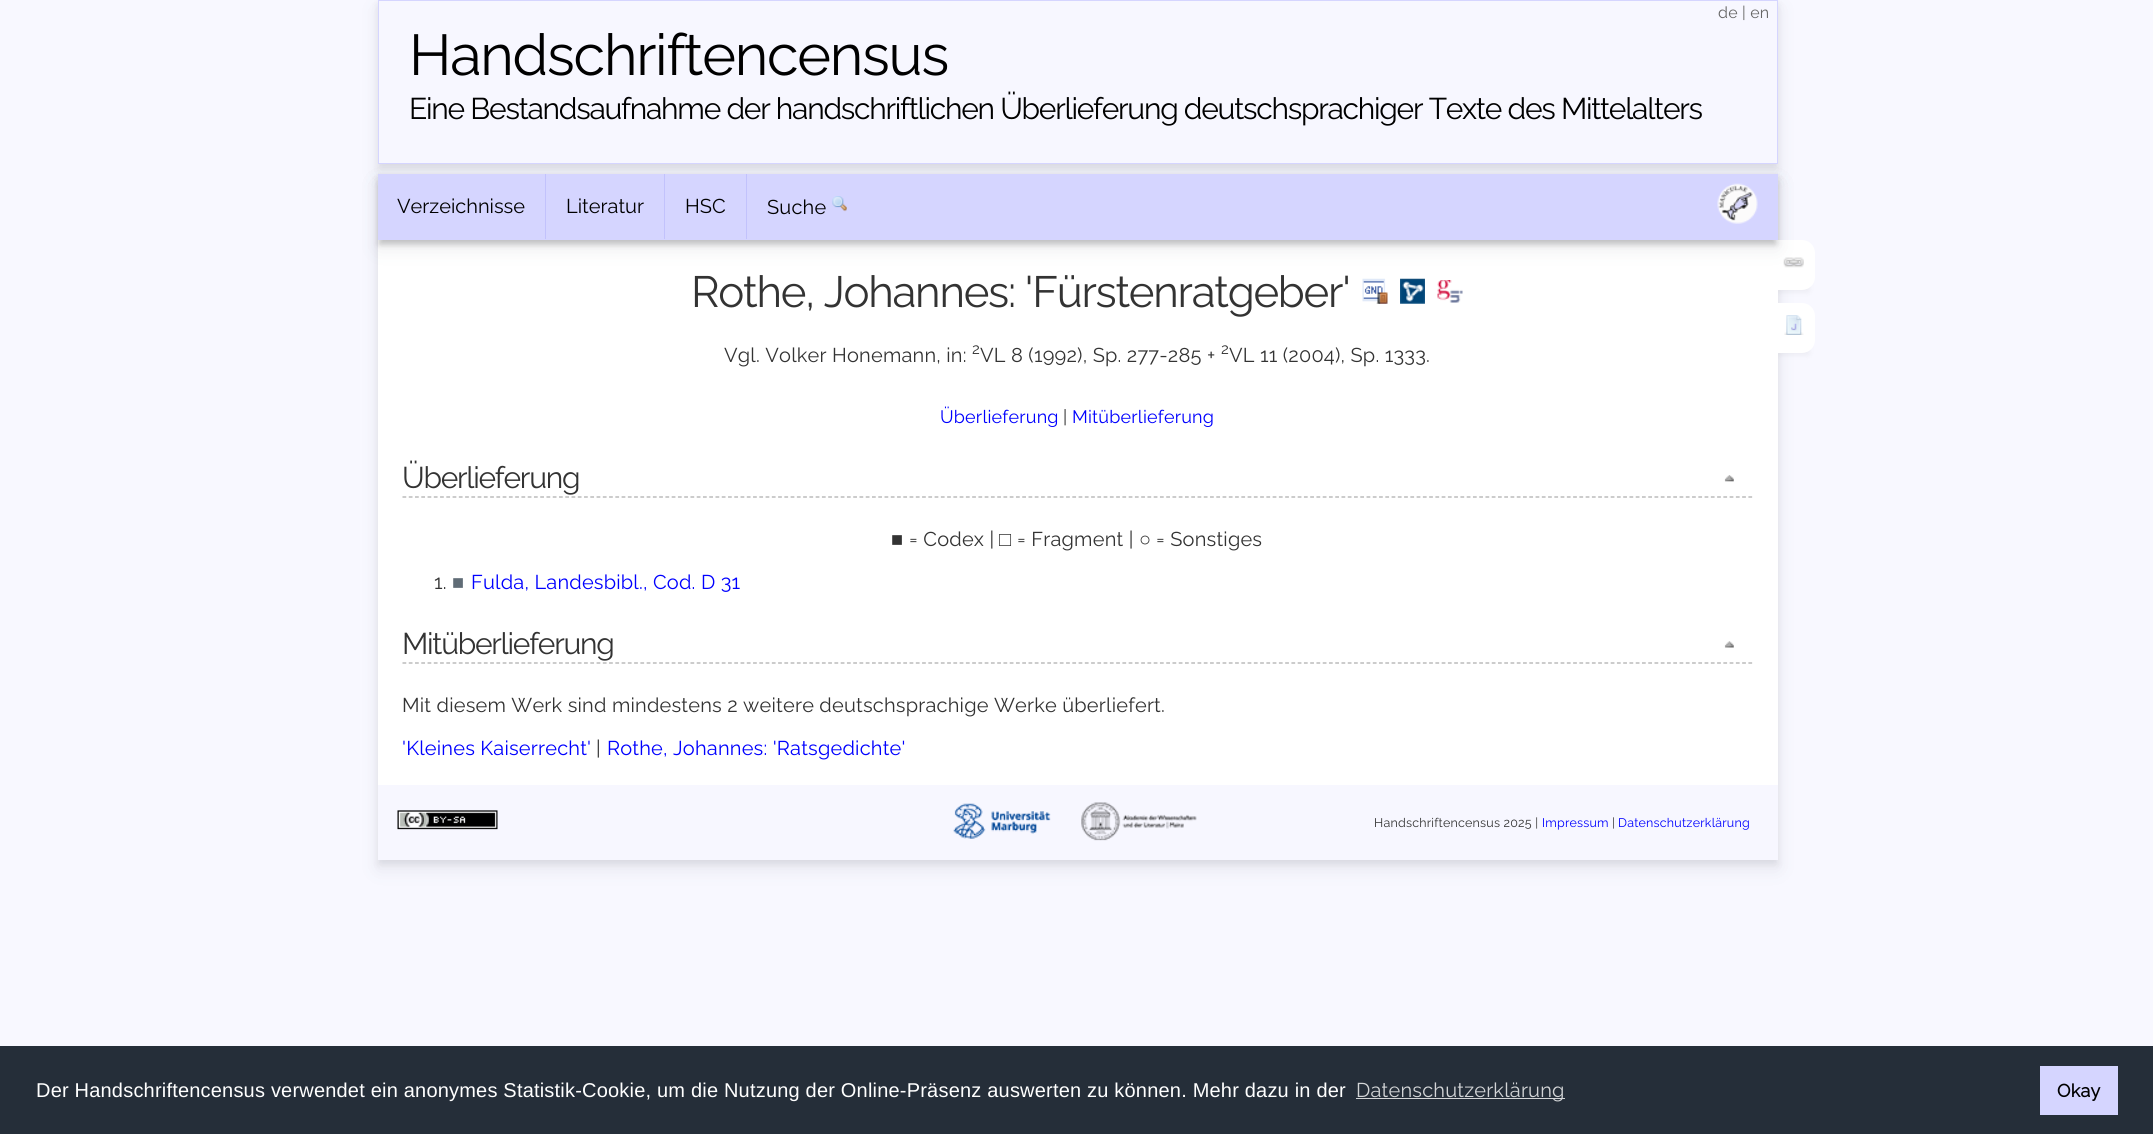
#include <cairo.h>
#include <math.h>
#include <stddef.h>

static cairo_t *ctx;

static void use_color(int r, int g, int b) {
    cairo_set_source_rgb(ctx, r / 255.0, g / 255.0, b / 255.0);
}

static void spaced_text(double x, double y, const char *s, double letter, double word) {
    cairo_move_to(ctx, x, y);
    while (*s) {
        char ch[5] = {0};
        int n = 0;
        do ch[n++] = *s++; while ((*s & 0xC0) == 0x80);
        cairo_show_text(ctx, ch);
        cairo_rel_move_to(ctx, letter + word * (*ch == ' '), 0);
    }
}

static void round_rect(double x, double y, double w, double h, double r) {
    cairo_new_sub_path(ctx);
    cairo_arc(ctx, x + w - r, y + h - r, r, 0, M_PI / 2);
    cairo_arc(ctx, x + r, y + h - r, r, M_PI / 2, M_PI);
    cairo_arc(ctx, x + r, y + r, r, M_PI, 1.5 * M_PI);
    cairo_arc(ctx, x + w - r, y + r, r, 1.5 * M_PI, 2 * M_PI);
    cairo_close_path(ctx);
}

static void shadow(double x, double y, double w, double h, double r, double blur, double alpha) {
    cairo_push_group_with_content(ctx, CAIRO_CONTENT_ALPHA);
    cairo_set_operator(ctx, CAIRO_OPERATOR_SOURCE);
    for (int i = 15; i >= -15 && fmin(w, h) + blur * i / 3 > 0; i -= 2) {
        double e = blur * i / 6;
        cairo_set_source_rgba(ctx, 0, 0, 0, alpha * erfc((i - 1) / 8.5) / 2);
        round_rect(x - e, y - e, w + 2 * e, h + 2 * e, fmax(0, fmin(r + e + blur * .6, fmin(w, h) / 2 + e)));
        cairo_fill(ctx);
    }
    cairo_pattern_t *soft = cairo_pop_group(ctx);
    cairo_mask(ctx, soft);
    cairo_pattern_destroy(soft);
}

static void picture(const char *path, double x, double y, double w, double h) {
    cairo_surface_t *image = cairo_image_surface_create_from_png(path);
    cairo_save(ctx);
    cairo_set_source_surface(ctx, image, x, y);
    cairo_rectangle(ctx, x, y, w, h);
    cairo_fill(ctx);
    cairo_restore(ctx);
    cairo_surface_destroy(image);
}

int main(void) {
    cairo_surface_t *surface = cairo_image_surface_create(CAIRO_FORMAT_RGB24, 2153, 1134);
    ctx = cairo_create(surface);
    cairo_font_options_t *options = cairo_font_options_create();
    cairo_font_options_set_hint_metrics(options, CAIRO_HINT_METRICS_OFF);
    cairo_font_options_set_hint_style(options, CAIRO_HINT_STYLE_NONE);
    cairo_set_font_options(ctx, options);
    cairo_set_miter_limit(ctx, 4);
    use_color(248, 248, 255);
    cairo_paint(ctx);
    use_color(0, 0, 0);
    shadow(378, 4, 1400, 164, 0, 4, 0.07);
    use_color(60, 66, 87);
    shadow(378, 9, 1400, 164, 0, 9, 0.1);
    use_color(247, 247, 255);
    cairo_rectangle(ctx, 378.5, 0.5, 1399, 163);
    cairo_fill_preserve(ctx);
    use_color(213, 213, 255);
    cairo_set_line_width(ctx, 1);
    cairo_stroke(ctx);
    cairo_select_font_face(ctx, "Raleway Thin", CAIRO_FONT_SLANT_NORMAL, CAIRO_FONT_WEIGHT_NORMAL);
    cairo_set_font_size(ctx, 16);
    use_color(102, 102, 102);
    spaced_text(1718, 18, "de | en", 0.2, 0);
    cairo_set_font_size(ctx, 57.5);
    use_color(0, 0, 0);
    spaced_text(409, 75, "Handschriftencensus", -1.25, 0);
    cairo_set_font_size(ctx, 30);
    spaced_text(409, 119, "Eine Bestandsaufnahme der handschriftlichen Überlieferung deutschsprachiger Texte des Mittelalters", -1.25, 0);
    use_color(0, 0, 0);
    shadow(378, 178, 1400, 686, 0, 4, 0.07);
    use_color(60, 66, 87);
    shadow(378, 183, 1400, 686, 0, 9, 0.1);
    use_color(0, 0, 0);
    shadow(1779, 279, 29, 12, 0, 4, 0.07);
    shadow(1779, 341, 29, 13, 0, 4, 0.07);
    use_color(255, 255, 255);
    cairo_rectangle(ctx, 378, 240, 1400, 545);
    cairo_fill(ctx);
    round_rect(1753, 240, 62, 50, 13);
    cairo_fill(ctx);
    use_color(0, 0, 0);
    shadow(378, 178, 1400, 66, 0, 4, 0.07);
    picture("img6.png", 1783, 257, 21, 11);
    use_color(60, 66, 87);
    shadow(378, 183, 1400, 66, 0, 9, 0.1);
    use_color(0, 0, 0);
    shadow(380, 183, 1395, 61, 0, 3, 0.15);
    use_color(213, 213, 255);
    cairo_rectangle(ctx, 378, 174, 1400, 66);
    cairo_fill(ctx);
    use_color(194, 194, 252);
    cairo_rectangle(ctx, 545, 174, 1, 66);
    cairo_fill(ctx);
    use_color(213, 213, 255);
    cairo_rectangle(ctx, 545, 239, 1, 1);
    cairo_fill(ctx);
    cairo_set_font_size(ctx, 20);
    use_color(0, 0, 0);
    cairo_move_to(ctx, 397, 213);
    cairo_show_text(ctx, "Verzeichnisse");
    use_color(194, 194, 252);
    cairo_rectangle(ctx, 664, 174, 1, 66);
    cairo_fill(ctx);
    use_color(213, 213, 255);
    cairo_rectangle(ctx, 664, 239, 1, 1);
    cairo_fill(ctx);
    use_color(0, 0, 0);
    cairo_move_to(ctx, 566, 213);
    cairo_show_text(ctx, "Literatur");
    use_color(194, 194, 252);
    cairo_rectangle(ctx, 746, 174, 1, 66);
    cairo_fill(ctx);
    use_color(213, 213, 255);
    cairo_rectangle(ctx, 746, 239, 2, 1);
    cairo_fill(ctx);
    use_color(0, 0, 0);
    cairo_move_to(ctx, 685, 213);
    cairo_show_text(ctx, "HSC");
    spaced_text(767, 214, "Suche", 0.2, 0);
    picture("img1.png", 832, 196, 15, 16);
    picture("img2.png", 1717, 183, 41, 41);
    cairo_set_font_size(ctx, 43.75);
    use_color(51, 51, 51);
    spaced_text(691, 307, "Rothe, Johannes: 'Fürstenratgeber'", -1.25, 0);
    picture("img3.png", 1362, 278, 26, 26);
    picture("img4.png", 1400, 278, 25, 26);
    picture("img5.png", 1437, 280, 26, 23);
    cairo_set_font_size(ctx, 20);
    spaced_text(724, 362, "Vgl. Volker Honemann, in:", 0.2, 0);
    cairo_set_font_size(ctx, 15);
    spaced_text(972, 354, "2", 0.2, 0);
    cairo_set_font_size(ctx, 20);
    spaced_text(980, 362, "VL 8 (1992), Sp. 277-285 +", 0.2, 0);
    cairo_set_font_size(ctx, 15);
    spaced_text(1221, 354, "2", 0.2, 0);
    cairo_set_font_size(ctx, 20);
    spaced_text(1229, 362, "VL 11 (2004), Sp. 1333.", 0.2, 0);
    use_color(255, 255, 255);
    round_rect(1753, 303, 62, 50, 13);
    cairo_fill(ctx);
    picture("img7.png", 1784, 315, 20, 20);
    cairo_set_font_size(ctx, 18);
    use_color(0, 0, 255);
    spaced_text(940, 423, "Überlieferung", 0.2, 0);
    use_color(51, 51, 51);
    spaced_text(1063, 423, "|", 0.2, 0);
    use_color(0, 0, 255);
    spaced_text(1072, 423, "Mitüberlieferung", 0.2, 0);
    cairo_new_path(ctx);
    cairo_move_to(ctx, 402.5, 497);
    cairo_line_to(ctx, 1752.5, 497);
    use_color(170, 170, 170);
    cairo_set_line_width(ctx, 1.2);
    cairo_set_dash(ctx, (double[]){3.75, 2.51}, 2, 0);
    cairo_stroke(ctx);
    cairo_set_font_size(ctx, 30);
    use_color(51, 51, 51);
    spaced_text(402, 488, "Überlieferung", -1.25, 0);
    picture("img8.png", 1724, 475, 10, 7);
    cairo_select_font_face(ctx, "Liberation Sans", CAIRO_FONT_SLANT_NORMAL, CAIRO_FONT_WEIGHT_NORMAL);
    cairo_set_font_size(ctx, 20);
    spaced_text(891, 546, "■", 0.2, 0);
    cairo_select_font_face(ctx, "Raleway Thin", CAIRO_FONT_SLANT_NORMAL, CAIRO_FONT_WEIGHT_NORMAL);
    spaced_text(909, 546, "= Codex |", 0.2, 0);
    cairo_select_font_face(ctx, "Liberation Sans", CAIRO_FONT_SLANT_NORMAL, CAIRO_FONT_WEIGHT_NORMAL);
    spaced_text(999, 546, "□", 0.2, 0);
    cairo_select_font_face(ctx, "Raleway Thin", CAIRO_FONT_SLANT_NORMAL, CAIRO_FONT_WEIGHT_NORMAL);
    spaced_text(1017, 546, "= Fragment |", 0.2, 0);
    cairo_select_font_face(ctx, "Liberation Sans", CAIRO_FONT_SLANT_NORMAL, CAIRO_FONT_WEIGHT_NORMAL);
    spaced_text(1139, 546, "○", 0.2, 0);
    cairo_select_font_face(ctx, "Raleway Thin", CAIRO_FONT_SLANT_NORMAL, CAIRO_FONT_WEIGHT_NORMAL);
    spaced_text(1156, 546, "= Sonstiges", 0.2, 0);
    spaced_text(434, 589, "1.", 0.2, 0);
    cairo_select_font_face(ctx, "Liberation Sans", CAIRO_FONT_SLANT_NORMAL, CAIRO_FONT_WEIGHT_NORMAL);
    use_color(96, 108, 118);
    spaced_text(452, 589, "■", 0.2, 0);
    cairo_select_font_face(ctx, "Raleway Thin", CAIRO_FONT_SLANT_NORMAL, CAIRO_FONT_WEIGHT_NORMAL);
    use_color(0, 0, 255);
    spaced_text(471, 589, "Fulda, Landesbibl., Cod. D 31", 0.2, 0);
    cairo_new_path(ctx);
    cairo_move_to(ctx, 402.5, 663);
    cairo_line_to(ctx, 1752.5, 663);
    use_color(170, 170, 170);
    cairo_stroke(ctx);
    cairo_set_font_size(ctx, 30);
    use_color(51, 51, 51);
    spaced_text(402, 654, "Mitüberlieferung", -1.25, 0);
    picture("img9.png", 1724, 641, 10, 7);
    cairo_set_font_size(ctx, 20);
    spaced_text(402, 712, "Mit diesem Werk sind mindestens 2 weitere deutschsprachige Werke überliefert.", 0.2, 0);
    use_color(0, 0, 255);
    spaced_text(402, 755, "'Kleines Kaiserrecht'", 0.2, 0);
    use_color(51, 51, 51);
    spaced_text(596, 755, "|", 0.2, 0);
    use_color(0, 0, 255);
    spaced_text(607, 755, "Rothe, Johannes: 'Ratsgedichte'", 0.2, 0);
    use_color(247, 247, 255);
    cairo_rectangle(ctx, 378, 785, 1400, 75);
    cairo_fill(ctx);
    picture("img10.png", 397, 810, 101, 20);
    picture("img11.png", 953, 803, 98, 36);
    picture("img12.png", 1081, 802, 116, 39);
    cairo_set_font_size(ctx, 12.5);
    use_color(51, 51, 51);
    spaced_text(1374, 827, "Handschriftencensus 2025 |", 0.2, 0);
    use_color(0, 0, 255);
    spaced_text(1542, 827, "Impressum", 0.2, 0);
    use_color(51, 51, 51);
    spaced_text(1612, 827, "|", 0.2, 0);
    use_color(0, 0, 255);
    spaced_text(1618, 827, "Datenschutzerklärung", 0.2, 0);
    use_color(37, 46, 57);
    cairo_rectangle(ctx, 0, 1046, 2153, 88);
    cairo_fill(ctx);
    cairo_select_font_face(ctx, "Liberation Sans", CAIRO_FONT_SLANT_NORMAL, CAIRO_FONT_WEIGHT_NORMAL);
    cairo_set_font_size(ctx, 20);
    use_color(255, 255, 255);
    spaced_text(36, 1097, "Der Handschriftencensus verwendet ein anonymes Statistik-Cookie, um die Nutzung der Online-Präsenz auswerten zu können. Mehr dazu in der", 0.2, 0);
    use_color(211, 213, 215);
    cairo_rectangle(ctx, 1356, 1098, 209, 1);
    cairo_fill(ctx);
    cairo_select_font_face(ctx, "Raleway Thin", CAIRO_FONT_SLANT_NORMAL, CAIRO_FONT_WEIGHT_NORMAL);
    spaced_text(1356, 1097, "Datenschutzerklärung", 0.2, 0);
    use_color(213, 213, 255);
    cairo_rectangle(ctx, 2040, 1066, 78, 49);
    cairo_fill(ctx);
    cairo_select_font_face(ctx, "Raleway", CAIRO_FONT_SLANT_NORMAL, CAIRO_FONT_WEIGHT_BOLD);
    cairo_set_font_size(ctx, 18);
    use_color(0, 0, 0);
    spaced_text(2057, 1097, "Okay", 0.2, 0);
    cairo_surface_write_to_png(surface, "result.png");
    cairo_font_options_destroy(options);
    cairo_destroy(ctx);
    cairo_surface_destroy(surface);
    return 0;
}
